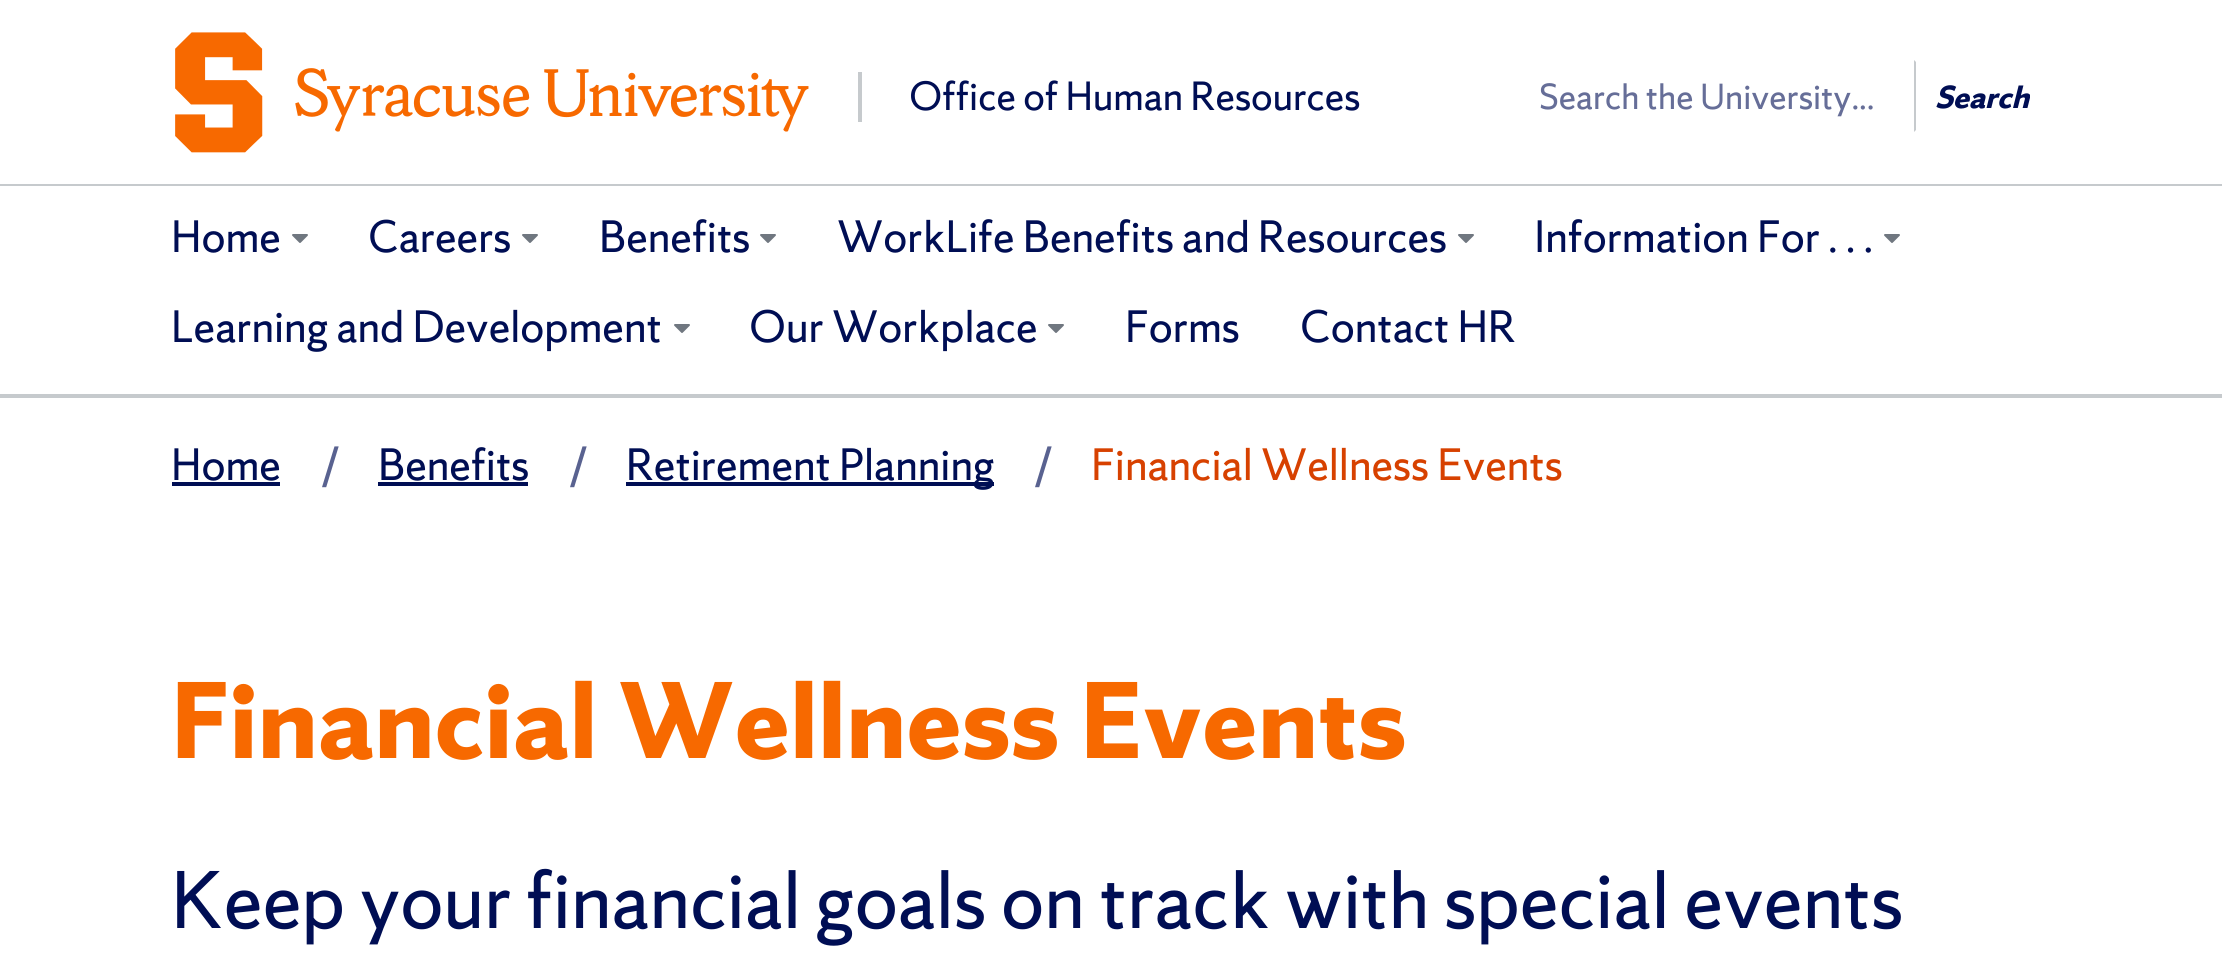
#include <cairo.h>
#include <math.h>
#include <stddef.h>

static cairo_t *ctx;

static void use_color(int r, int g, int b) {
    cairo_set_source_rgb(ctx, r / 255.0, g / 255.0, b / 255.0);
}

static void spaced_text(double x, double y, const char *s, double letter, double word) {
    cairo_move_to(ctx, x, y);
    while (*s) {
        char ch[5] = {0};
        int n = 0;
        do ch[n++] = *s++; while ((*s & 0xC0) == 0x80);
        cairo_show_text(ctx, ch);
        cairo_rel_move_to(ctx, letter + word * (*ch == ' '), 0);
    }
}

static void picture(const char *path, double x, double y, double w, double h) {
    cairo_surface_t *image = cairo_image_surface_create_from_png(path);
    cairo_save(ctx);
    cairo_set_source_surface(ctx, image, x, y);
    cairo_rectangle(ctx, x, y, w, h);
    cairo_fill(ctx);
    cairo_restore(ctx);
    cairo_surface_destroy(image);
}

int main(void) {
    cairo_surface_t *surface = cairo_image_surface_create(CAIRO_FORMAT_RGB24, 2222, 977);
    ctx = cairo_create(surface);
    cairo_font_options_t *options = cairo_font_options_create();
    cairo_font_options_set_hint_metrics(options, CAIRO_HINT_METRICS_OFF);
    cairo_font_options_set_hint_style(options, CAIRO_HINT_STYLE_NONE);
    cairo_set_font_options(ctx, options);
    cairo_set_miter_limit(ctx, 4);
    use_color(255, 255, 255);
    cairo_paint(ctx);
    use_color(198, 202, 205);
    cairo_rectangle(ctx, 0, 184, 2222, 2);
    cairo_fill(ctx);
    picture("img1.png", 175, 32, 634, 121);
    cairo_rectangle(ctx, 858, 72, 4, 50);
    cairo_fill(ctx);
    cairo_select_font_face(ctx, "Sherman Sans", CAIRO_FONT_SLANT_NORMAL, CAIRO_FONT_WEIGHT_NORMAL);
    cairo_set_font_size(ctx, 36);
    use_color(0, 14, 84);
    cairo_move_to(ctx, 909, 110);
    cairo_show_text(ctx, "Office of Human Resources");
    cairo_set_font_size(ctx, 32);
    use_color(102, 110, 152);
    cairo_move_to(ctx, 1539, 109);
    cairo_show_text(ctx, "Search the University...");
    use_color(198, 202, 205);
    cairo_new_path(ctx);
    cairo_move_to(ctx, 1914, 132);
    cairo_line_to(ctx, 1914, 60);
    cairo_line_to(ctx, 1916, 62);
    cairo_line_to(ctx, 1916, 130);
    cairo_close_path(ctx);
    cairo_fill(ctx);
    cairo_select_font_face(ctx, "Sherman Sans", CAIRO_FONT_SLANT_ITALIC, CAIRO_FONT_WEIGHT_BOLD);
    cairo_set_font_size(ctx, 28);
    use_color(0, 14, 84);
    cairo_move_to(ctx, 1935, 108);
    cairo_show_text(ctx, "Search");
    use_color(198, 202, 205);
    cairo_rectangle(ctx, 0, 394, 2222, 4);
    cairo_fill(ctx);
    cairo_select_font_face(ctx, "Sherman Sans", CAIRO_FONT_SLANT_NORMAL, CAIRO_FONT_WEIGHT_NORMAL);
    cairo_set_font_size(ctx, 40);
    use_color(0, 14, 84);
    cairo_move_to(ctx, 171, 252);
    cairo_show_text(ctx, "Home");
    picture("img2.png", 292, 234, 16, 9);
    cairo_move_to(ctx, 368, 252);
    cairo_show_text(ctx, "Careers");
    picture("img2.png", 522, 234, 16, 9);
    cairo_move_to(ctx, 599, 252);
    cairo_show_text(ctx, "Benefits");
    picture("img2.png", 760, 234, 16, 9);
    cairo_move_to(ctx, 837, 252);
    cairo_show_text(ctx, "WorkLife Benefits and Resources");
    picture("img2.png", 1458, 234, 16, 9);
    cairo_move_to(ctx, 1534, 252);
    cairo_show_text(ctx, "Information For . . .");
    picture("img2.png", 1884, 234, 16, 9);
    cairo_move_to(ctx, 171, 342);
    cairo_show_text(ctx, "Learning and Development");
    picture("img2.png", 674, 324, 16, 9);
    cairo_move_to(ctx, 749, 342);
    cairo_show_text(ctx, "Our Workplace");
    picture("img2.png", 1048, 324, 16, 9);
    cairo_move_to(ctx, 1125, 342);
    cairo_show_text(ctx, "Forms");
    cairo_move_to(ctx, 1300, 342);
    cairo_show_text(ctx, "Contact HR");
    cairo_move_to(ctx, 171, 480);
    cairo_show_text(ctx, "Home");
    cairo_rectangle(ctx, 172, 482, 108, 4);
    cairo_fill(ctx);
    use_color(89, 98, 144);
    cairo_move_to(ctx, 323, 480);
    cairo_show_text(ctx, "/");
    use_color(0, 14, 84);
    cairo_move_to(ctx, 378, 480);
    cairo_show_text(ctx, "Benefits");
    cairo_rectangle(ctx, 378, 482, 150, 4);
    cairo_fill(ctx);
    use_color(89, 98, 144);
    cairo_move_to(ctx, 571, 480);
    cairo_show_text(ctx, "/");
    use_color(0, 14, 84);
    cairo_rectangle(ctx, 626, 482, 368, 4);
    cairo_fill(ctx);
    cairo_move_to(ctx, 626, 480);
    cairo_show_text(ctx, "Retirement Planning");
    use_color(89, 98, 144);
    cairo_move_to(ctx, 1036, 480);
    cairo_show_text(ctx, "/");
    use_color(215, 65, 0);
    cairo_move_to(ctx, 1091, 480);
    cairo_show_text(ctx, "Financial Wellness Events");
    cairo_select_font_face(ctx, "Sherman Sans", CAIRO_FONT_SLANT_NORMAL, CAIRO_FONT_WEIGHT_BOLD);
    cairo_set_font_size(ctx, 96);
    use_color(247, 105, 0);
    spaced_text(171, 758, "Financial Wellness Events", 0.95, 0);
    cairo_select_font_face(ctx, "Sherman Sans", CAIRO_FONT_SLANT_NORMAL, CAIRO_FONT_WEIGHT_NORMAL);
    cairo_set_font_size(ctx, 72);
    use_color(0, 14, 84);
    cairo_move_to(ctx, 171, 928);
    cairo_show_text(ctx, "Keep your financial goals on track with special events");
    cairo_surface_write_to_png(surface, "result.png");
    cairo_font_options_destroy(options);
    cairo_destroy(ctx);
    cairo_surface_destroy(surface);
    return 0;
}
